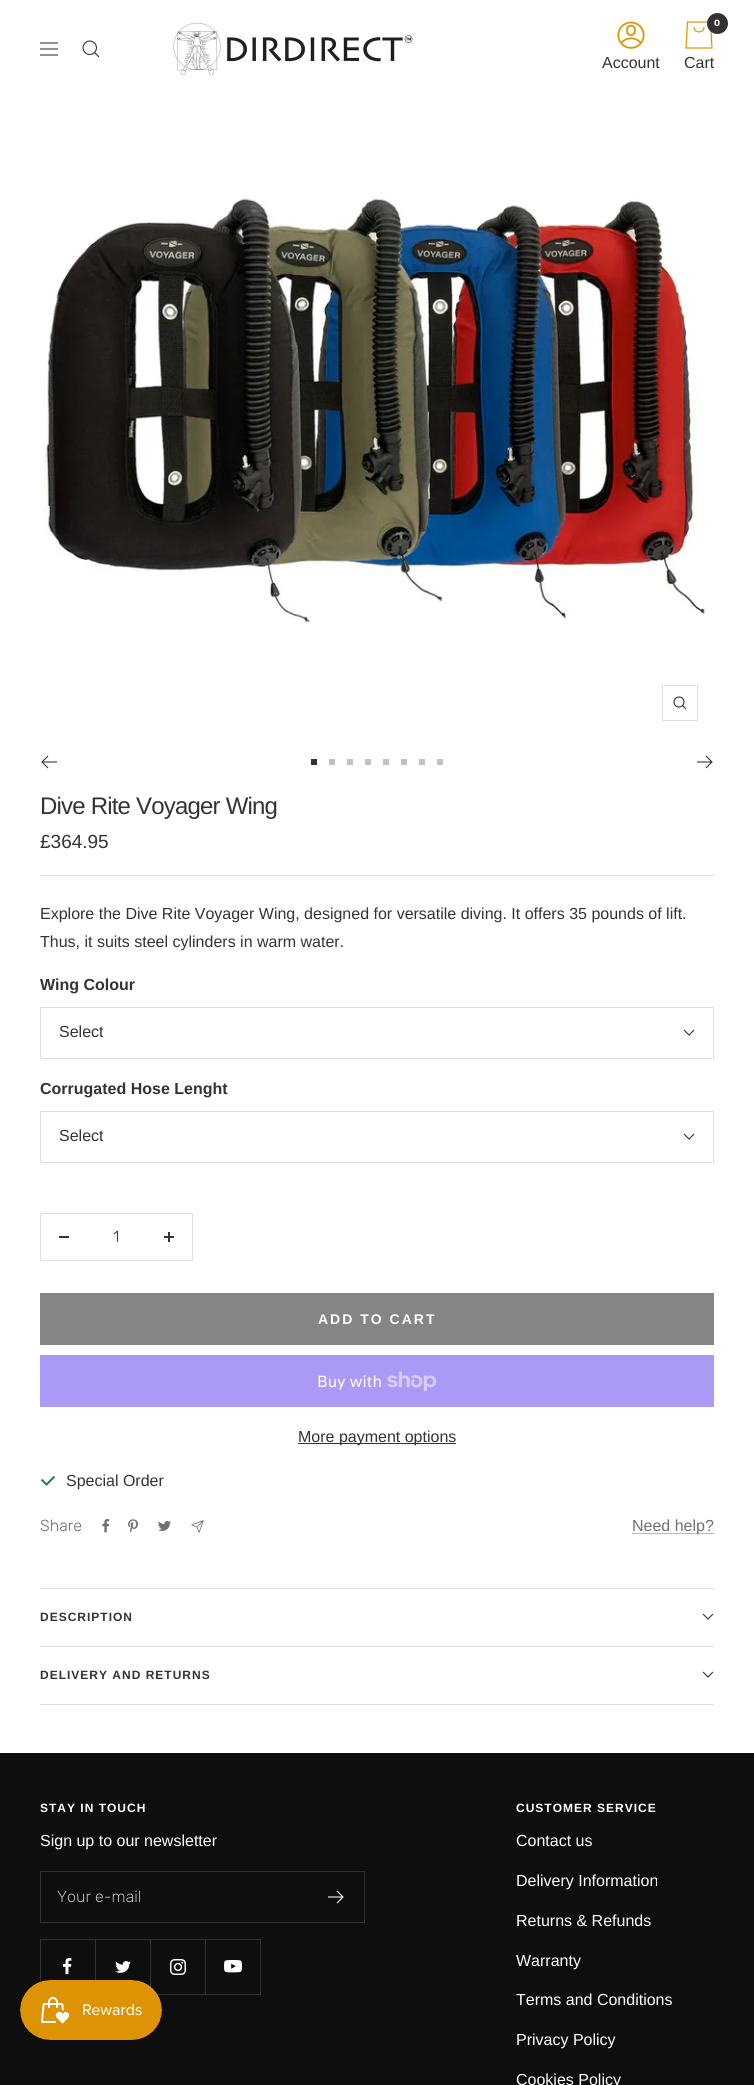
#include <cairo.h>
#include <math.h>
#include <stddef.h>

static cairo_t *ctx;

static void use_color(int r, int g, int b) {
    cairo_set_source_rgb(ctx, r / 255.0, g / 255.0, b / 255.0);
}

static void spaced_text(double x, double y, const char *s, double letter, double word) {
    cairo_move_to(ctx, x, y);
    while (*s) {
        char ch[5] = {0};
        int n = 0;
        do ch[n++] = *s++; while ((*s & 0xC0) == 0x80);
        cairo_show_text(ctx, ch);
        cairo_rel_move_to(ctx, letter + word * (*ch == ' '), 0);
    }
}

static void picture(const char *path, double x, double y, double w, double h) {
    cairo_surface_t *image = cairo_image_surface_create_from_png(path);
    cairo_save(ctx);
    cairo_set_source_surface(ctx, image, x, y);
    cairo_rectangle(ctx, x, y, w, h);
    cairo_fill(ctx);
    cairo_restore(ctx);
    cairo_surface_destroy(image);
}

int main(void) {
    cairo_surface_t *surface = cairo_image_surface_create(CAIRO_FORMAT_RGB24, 754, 2085);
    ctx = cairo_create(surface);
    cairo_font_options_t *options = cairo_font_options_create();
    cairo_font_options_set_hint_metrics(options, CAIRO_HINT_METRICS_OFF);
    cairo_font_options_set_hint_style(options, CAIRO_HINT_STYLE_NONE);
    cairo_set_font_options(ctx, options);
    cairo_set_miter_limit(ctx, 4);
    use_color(255, 255, 255);
    cairo_paint(ctx);
    cairo_new_path(ctx);
    cairo_move_to(ctx, 40, 43);
    cairo_line_to(ctx, 58, 43);
    cairo_move_to(ctx, 40, 55);
    cairo_line_to(ctx, 58, 55);
    cairo_close_path(ctx);
    cairo_move_to(ctx, 40, 49);
    cairo_line_to(ctx, 58, 49);
    cairo_close_path(ctx);
    cairo_move_to(ctx, 94.5, 52.5);
    cairo_curve_to(ctx, 100.5, 46, 91.5, 37, 85, 43);
    cairo_curve_to(ctx, 79, 49.5, 88, 58.5, 94.5, 52.5);
    cairo_close_path(ctx);
    cairo_move_to(ctx, 94.5, 52.5);
    cairo_line_to(ctx, 99, 57);
    use_color(51, 51, 51);
    cairo_set_line_width(ctx, 1.1);
    cairo_stroke(ctx);
    picture("img1.png", 173, 23, 240, 52);
    picture("img2.png", 617, 21, 28, 28);
    cairo_select_font_face(ctx, "Liberation Sans", CAIRO_FONT_SLANT_NORMAL, CAIRO_FONT_WEIGHT_NORMAL);
    cairo_set_font_size(ctx, 16);
    cairo_move_to(ctx, 602, 68);
    cairo_show_text(ctx, "Account");
    cairo_new_path(ctx);
    cairo_move_to(ctx, 687.5, 22);
    cairo_line_to(ctx, 710.5, 22);
    cairo_line_to(ctx, 712, 48);
    cairo_line_to(ctx, 686, 48);
    cairo_close_path(ctx);
    cairo_move_to(ctx, 694, 27);
    cairo_curve_to(ctx, 694, 33.5, 704, 33.5, 704, 27);
    use_color(221, 148, 0);
    cairo_set_line_width(ctx, 1.2);
    cairo_stroke(ctx);
    use_color(51, 51, 51);
    cairo_arc(ctx, 717.5, 23.5, 10.5, 0, 2 * M_PI);
    cairo_fill(ctx);
    cairo_select_font_face(ctx, "Rubik SemiBold", CAIRO_FONT_SLANT_NORMAL, CAIRO_FONT_WEIGHT_NORMAL);
    cairo_set_font_size(ctx, 9);
    use_color(254, 254, 254);
    cairo_move_to(ctx, 714, 26);
    cairo_show_text(ctx, "0");
    cairo_select_font_face(ctx, "Liberation Sans", CAIRO_FONT_SLANT_NORMAL, CAIRO_FONT_WEIGHT_NORMAL);
    cairo_set_font_size(ctx, 16);
    use_color(51, 51, 51);
    cairo_move_to(ctx, 684, 68);
    cairo_show_text(ctx, "Cart");
    picture("img3.png", 40, 98, 674, 639);
    cairo_rectangle(ctx, 662.5, 685.5, 35, 35);
    use_color(224, 224, 224);
    cairo_set_line_width(ctx, 1);
    cairo_stroke(ctx);
    picture("img4.png", 673, 696, 14, 14);
    cairo_new_path(ctx);
    cairo_move_to(ctx, 57, 762);
    cairo_line_to(ctx, 42, 762);
    cairo_move_to(ctx, 48, 756);
    cairo_line_to(ctx, 42, 762);
    cairo_line_to(ctx, 48, 768);
    use_color(51, 51, 51);
    cairo_set_line_width(ctx, 1.1);
    cairo_stroke(ctx);
    cairo_rectangle(ctx, 311, 759, 6, 6);
    cairo_fill(ctx);
    use_color(194, 194, 194);
    cairo_rectangle(ctx, 329, 759, 6, 6);
    cairo_fill(ctx);
    cairo_rectangle(ctx, 347, 759, 6, 6);
    cairo_fill(ctx);
    cairo_rectangle(ctx, 365, 759, 6, 6);
    cairo_fill(ctx);
    cairo_rectangle(ctx, 383, 759, 6, 6);
    cairo_fill(ctx);
    cairo_rectangle(ctx, 401, 759, 6, 6);
    cairo_fill(ctx);
    cairo_rectangle(ctx, 419, 759, 6, 6);
    cairo_fill(ctx);
    cairo_rectangle(ctx, 437, 759, 6, 6);
    cairo_fill(ctx);
    cairo_new_path(ctx);
    cairo_move_to(ctx, 697, 762);
    cairo_line_to(ctx, 712, 762);
    cairo_move_to(ctx, 706, 756);
    cairo_line_to(ctx, 712, 762);
    cairo_line_to(ctx, 706, 768);
    use_color(51, 51, 51);
    cairo_stroke(ctx);
    use_color(224, 224, 224);
    cairo_rectangle(ctx, 40, 875, 674, 1);
    cairo_fill(ctx);
    cairo_set_font_size(ctx, 24);
    use_color(51, 51, 51);
    spaced_text(40, 814, "Dive Rite Voyager Wing", -0.8, 0);
    cairo_set_font_size(ctx, 19);
    cairo_move_to(ctx, 40, 848);
    cairo_show_text(ctx, "£364.95");
    cairo_set_font_size(ctx, 16);
    cairo_move_to(ctx, 40, 919);
    cairo_show_text(ctx, "Explore the Dive Rite Voyager Wing, designed for versatile diving. It offers 35 pounds of lift.");
    cairo_move_to(ctx, 40, 947);
    cairo_show_text(ctx, "Thus, it suits steel cylinders in warm water.");
    cairo_select_font_face(ctx, "Liberation Sans", CAIRO_FONT_SLANT_NORMAL, CAIRO_FONT_WEIGHT_BOLD);
    cairo_move_to(ctx, 40, 990);
    cairo_show_text(ctx, "Wing Colour");
    cairo_rectangle(ctx, 40.5, 1007.5, 673, 51);
    use_color(224, 224, 224);
    cairo_set_line_width(ctx, 1);
    cairo_stroke(ctx);
    cairo_save(ctx);
    cairo_rectangle(ctx, 59, 1018, 44, 28);
    cairo_clip(ctx);
    cairo_select_font_face(ctx, "Liberation Sans", CAIRO_FONT_SLANT_NORMAL, CAIRO_FONT_WEIGHT_NORMAL);
    use_color(51, 51, 51);
    cairo_move_to(ctx, 59, 1037);
    cairo_show_text(ctx, "Select");
    cairo_restore(ctx);
    cairo_new_path(ctx);
    cairo_move_to(ctx, 684, 1030);
    cairo_line_to(ctx, 689, 1035);
    cairo_line_to(ctx, 694, 1030);
    use_color(51, 51, 51);
    cairo_set_line_width(ctx, 1.1);
    cairo_stroke(ctx);
    cairo_move_to(ctx, 40, 1094);
    cairo_show_text(ctx, "Corrugated Hose Lenght");
    cairo_rectangle(ctx, 40.5, 1111.5, 673, 51);
    use_color(224, 224, 224);
    cairo_set_line_width(ctx, 1);
    cairo_stroke(ctx);
    cairo_save(ctx);
    cairo_rectangle(ctx, 59, 1122, 44, 28);
    cairo_clip(ctx);
    cairo_select_font_face(ctx, "Liberation Sans", CAIRO_FONT_SLANT_NORMAL, CAIRO_FONT_WEIGHT_NORMAL);
    use_color(51, 51, 51);
    cairo_move_to(ctx, 59, 1141);
    cairo_show_text(ctx, "Select");
    cairo_restore(ctx);
    cairo_new_path(ctx);
    cairo_move_to(ctx, 684, 1134);
    cairo_line_to(ctx, 689, 1139);
    cairo_line_to(ctx, 694, 1134);
    use_color(51, 51, 51);
    cairo_set_line_width(ctx, 1.1);
    cairo_stroke(ctx);
    cairo_rectangle(ctx, 40.5, 1213.5, 152, 47);
    use_color(224, 224, 224);
    cairo_set_line_width(ctx, 1);
    cairo_stroke(ctx);
    use_color(51, 51, 51);
    cairo_rectangle(ctx, 59, 1236, 10, 2);
    cairo_fill(ctx);
    cairo_select_font_face(ctx, "Rubik Light", CAIRO_FONT_SLANT_NORMAL, CAIRO_FONT_WEIGHT_NORMAL);
    cairo_move_to(ctx, 113, 1242);
    cairo_show_text(ctx, "1");
    picture("img5.png", 164, 1232, 10, 10);
    use_color(133, 133, 133);
    cairo_rectangle(ctx, 40, 1293, 674, 52);
    cairo_fill(ctx);
    cairo_select_font_face(ctx, "Liberation Sans", CAIRO_FONT_SLANT_NORMAL, CAIRO_FONT_WEIGHT_BOLD);
    cairo_set_font_size(ctx, 14);
    use_color(254, 254, 254);
    spaced_text(318, 1324, "ADD TO CART", 2, 0);
    use_color(170, 153, 245);
    cairo_rectangle(ctx, 40, 1355, 674, 52);
    cairo_fill(ctx);
    cairo_select_font_face(ctx, "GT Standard", CAIRO_FONT_SLANT_NORMAL, CAIRO_FONT_WEIGHT_NORMAL);
    cairo_set_font_size(ctx, 16);
    use_color(254, 254, 254);
    cairo_move_to(ctx, 317, 1387);
    cairo_show_text(ctx, "Buy with");
    picture("img6.png", 387, 1371, 50, 20);
    use_color(51, 51, 51);
    cairo_rectangle(ctx, 298, 1443, 158, 1);
    cairo_fill(ctx);
    cairo_select_font_face(ctx, "Liberation Sans", CAIRO_FONT_SLANT_NORMAL, CAIRO_FONT_WEIGHT_NORMAL);
    cairo_move_to(ctx, 298, 1442);
    cairo_show_text(ctx, "More payment options");
    cairo_new_path(ctx);
    cairo_move_to(ctx, 41.5, 1479.5);
    cairo_line_to(ctx, 46.5, 1484.5);
    cairo_line_to(ctx, 54.5, 1476.5);
    use_color(22, 131, 66);
    cairo_set_line_width(ctx, 2);
    cairo_stroke(ctx);
    use_color(51, 51, 51);
    cairo_move_to(ctx, 66, 1486);
    cairo_show_text(ctx, "Special Order");
    cairo_select_font_face(ctx, "Rubik Light", CAIRO_FONT_SLANT_NORMAL, CAIRO_FONT_WEIGHT_NORMAL);
    use_color(112, 112, 112);
    cairo_move_to(ctx, 40, 1531);
    cairo_show_text(ctx, "Share");
    picture("img7.png", 102, 1519, 8, 14);
    picture("img8.png", 128, 1519, 10, 14);
    picture("img9.png", 158, 1521, 13, 10);
    picture("img10.png", 191, 1520, 13, 13);
    use_color(184, 184, 184);
    cairo_rectangle(ctx, 632, 1533, 82, 1);
    cairo_fill(ctx);
    cairo_select_font_face(ctx, "Liberation Sans", CAIRO_FONT_SLANT_NORMAL, CAIRO_FONT_WEIGHT_NORMAL);
    use_color(112, 112, 112);
    cairo_move_to(ctx, 632, 1531);
    cairo_show_text(ctx, "Need help?");
    use_color(224, 224, 224);
    cairo_rectangle(ctx, 40, 1588, 674, 1);
    cairo_fill(ctx);
    cairo_select_font_face(ctx, "Liberation Sans", CAIRO_FONT_SLANT_NORMAL, CAIRO_FONT_WEIGHT_BOLD);
    cairo_set_font_size(ctx, 12);
    use_color(51, 51, 51);
    spaced_text(40, 1621, "DESCRIPTION", 1, 0);
    cairo_new_path(ctx);
    cairo_move_to(ctx, 703, 1614);
    cairo_line_to(ctx, 708, 1619);
    cairo_line_to(ctx, 713, 1614);
    cairo_set_line_width(ctx, 1.1);
    cairo_stroke(ctx);
    use_color(224, 224, 224);
    cairo_rectangle(ctx, 40, 1646, 674, 1);
    cairo_fill(ctx);
    cairo_rectangle(ctx, 40, 1704, 674, 1);
    cairo_fill(ctx);
    use_color(51, 51, 51);
    spaced_text(40, 1679, "DELIVERY AND RETURNS", 1, 0);
    cairo_new_path(ctx);
    cairo_move_to(ctx, 703, 1672);
    cairo_line_to(ctx, 708, 1677);
    cairo_line_to(ctx, 713, 1672);
    cairo_stroke(ctx);
    use_color(14, 14, 14);
    cairo_rectangle(ctx, 0, 1753, 754, 332);
    cairo_fill(ctx);
    use_color(254, 254, 254);
    spaced_text(40, 1812, "STAY IN TOUCH", 1, 0);
    cairo_select_font_face(ctx, "Liberation Sans", CAIRO_FONT_SLANT_NORMAL, CAIRO_FONT_WEIGHT_NORMAL);
    cairo_set_font_size(ctx, 16);
    cairo_move_to(ctx, 40, 1846);
    cairo_show_text(ctx, "Sign up to our newsletter");
    cairo_rectangle(ctx, 40.5, 1871.5, 324, 51);
    use_color(50, 50, 50);
    cairo_set_line_width(ctx, 1);
    cairo_stroke(ctx);
    cairo_select_font_face(ctx, "Rubik Light", CAIRO_FONT_SLANT_NORMAL, CAIRO_FONT_WEIGHT_NORMAL);
    use_color(182, 182, 182);
    cairo_move_to(ctx, 57, 1902);
    cairo_show_text(ctx, "Your e-mail");
    cairo_new_path(ctx);
    cairo_move_to(ctx, 328, 1897);
    cairo_line_to(ctx, 343, 1897);
    cairo_move_to(ctx, 337, 1891);
    cairo_line_to(ctx, 343, 1897);
    cairo_line_to(ctx, 337, 1903);
    use_color(254, 254, 254);
    cairo_set_line_width(ctx, 1.1);
    cairo_stroke(ctx);
    use_color(50, 50, 50);
    cairo_rectangle(ctx, 95, 1939, 1, 41);
    cairo_fill(ctx);
    cairo_rectangle(ctx, 40, 1939, 110, 1);
    cairo_fill(ctx);
    cairo_rectangle(ctx, 40, 1939, 1, 43);
    cairo_fill(ctx);
    picture("img11.png", 63, 1958, 9, 17);
    cairo_rectangle(ctx, 150, 1939, 1, 55);
    cairo_fill(ctx);
    picture("img12.png", 115, 1961, 16, 12);
    cairo_new_path(ctx);
    cairo_move_to(ctx, 151, 1994);
    cairo_line_to(ctx, 151, 1995);
    cairo_line_to(ctx, 206, 1995);
    cairo_line_to(ctx, 206, 1940);
    cairo_line_to(ctx, 205, 1940);
    cairo_line_to(ctx, 205, 1994);
    cairo_close_path(ctx);
    cairo_fill(ctx);
    cairo_rectangle(ctx, 150, 1939, 56, 1);
    cairo_fill(ctx);
    picture("img13.png", 170, 1959, 16, 16);
    cairo_new_path(ctx);
    cairo_move_to(ctx, 206, 1994);
    cairo_line_to(ctx, 206, 1995);
    cairo_line_to(ctx, 261, 1995);
    cairo_line_to(ctx, 261, 1940);
    cairo_line_to(ctx, 260, 1940);
    cairo_line_to(ctx, 260, 1994);
    cairo_close_path(ctx);
    cairo_fill(ctx);
    cairo_rectangle(ctx, 205, 1939, 56, 1);
    cairo_fill(ctx);
    picture("img14.png", 224, 1960, 18, 13);
    cairo_select_font_face(ctx, "Liberation Sans", CAIRO_FONT_SLANT_NORMAL, CAIRO_FONT_WEIGHT_BOLD);
    cairo_set_font_size(ctx, 12);
    use_color(254, 254, 254);
    spaced_text(516, 1812, "CUSTOMER SERVICE", 1, 0);
    cairo_select_font_face(ctx, "Liberation Sans", CAIRO_FONT_SLANT_NORMAL, CAIRO_FONT_WEIGHT_NORMAL);
    cairo_set_font_size(ctx, 16);
    cairo_move_to(ctx, 516, 1846);
    cairo_show_text(ctx, "Contact us");
    cairo_move_to(ctx, 516, 1886);
    cairo_show_text(ctx, "Delivery Information");
    cairo_move_to(ctx, 516, 1926);
    cairo_show_text(ctx, "Returns & Refunds");
    cairo_move_to(ctx, 516, 1966);
    cairo_show_text(ctx, "Warranty");
    cairo_move_to(ctx, 516, 2005);
    cairo_show_text(ctx, "Terms and Conditions");
    cairo_move_to(ctx, 516, 2045);
    cairo_show_text(ctx, "Privacy Policy");
    cairo_move_to(ctx, 516, 2085);
    cairo_show_text(ctx, "Cookies Policy");
    picture("img15.png", 20, 1980, 142, 60);
    cairo_surface_write_to_png(surface, "result.png");
    cairo_font_options_destroy(options);
    cairo_destroy(ctx);
    cairo_surface_destroy(surface);
    return 0;
}
